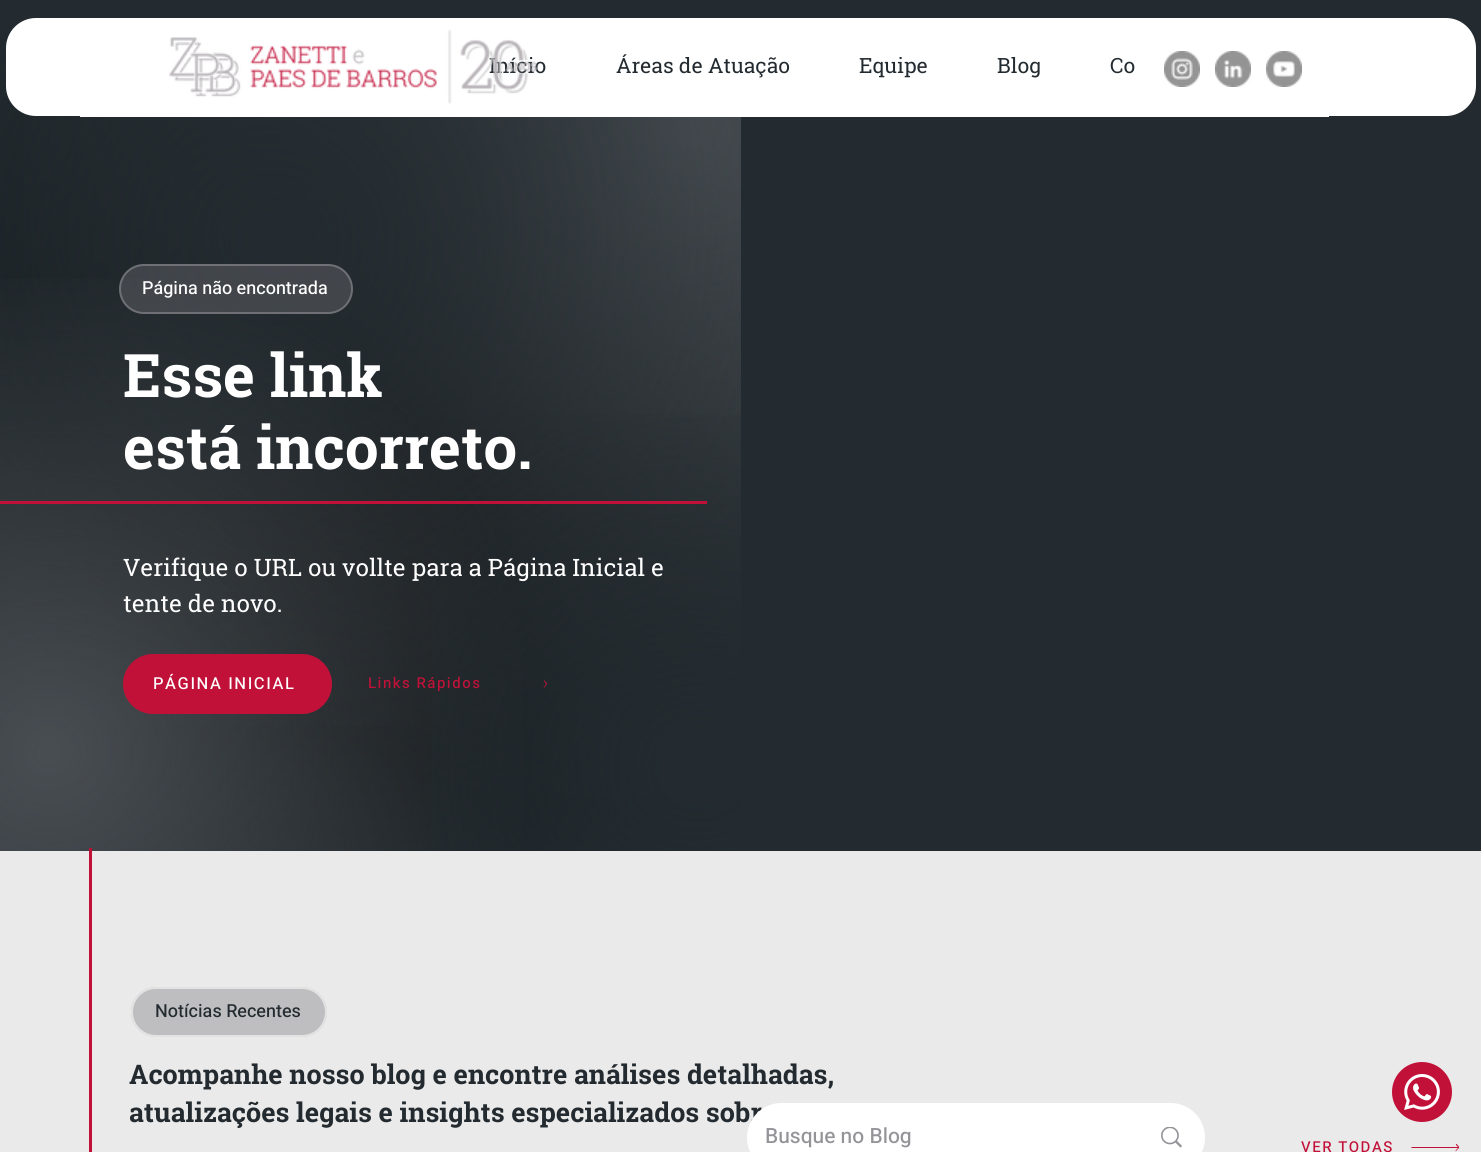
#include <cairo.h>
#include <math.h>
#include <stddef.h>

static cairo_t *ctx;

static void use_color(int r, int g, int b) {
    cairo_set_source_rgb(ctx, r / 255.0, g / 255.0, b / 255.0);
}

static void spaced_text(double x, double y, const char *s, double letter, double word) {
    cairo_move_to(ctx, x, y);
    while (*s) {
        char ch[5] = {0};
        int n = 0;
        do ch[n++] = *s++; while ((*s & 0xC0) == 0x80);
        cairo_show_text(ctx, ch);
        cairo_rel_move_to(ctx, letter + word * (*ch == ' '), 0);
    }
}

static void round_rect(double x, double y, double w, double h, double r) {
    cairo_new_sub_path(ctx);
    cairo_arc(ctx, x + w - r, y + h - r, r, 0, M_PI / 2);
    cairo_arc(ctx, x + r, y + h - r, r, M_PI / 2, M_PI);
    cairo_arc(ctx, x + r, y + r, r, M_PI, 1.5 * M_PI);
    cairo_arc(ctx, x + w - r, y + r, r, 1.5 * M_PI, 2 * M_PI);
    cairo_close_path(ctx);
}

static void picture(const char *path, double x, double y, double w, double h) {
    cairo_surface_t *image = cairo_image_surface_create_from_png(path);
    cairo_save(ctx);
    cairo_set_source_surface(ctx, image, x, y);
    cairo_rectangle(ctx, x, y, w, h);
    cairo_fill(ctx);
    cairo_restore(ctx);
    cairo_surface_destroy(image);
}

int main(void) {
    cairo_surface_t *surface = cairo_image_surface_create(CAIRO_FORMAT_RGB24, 1481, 1152);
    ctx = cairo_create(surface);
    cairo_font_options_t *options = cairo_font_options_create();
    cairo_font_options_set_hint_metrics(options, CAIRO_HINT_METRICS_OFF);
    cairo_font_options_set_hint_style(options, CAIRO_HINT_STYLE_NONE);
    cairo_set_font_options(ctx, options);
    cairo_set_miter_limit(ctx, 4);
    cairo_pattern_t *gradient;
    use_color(35, 43, 48);
    cairo_paint(ctx);
    gradient = cairo_pattern_create_radial(362, 438, 0, 362, 438, 560);
    cairo_pattern_add_color_stop_rgba(gradient, 0, 0, 0, 0, 1);
    cairo_pattern_add_color_stop_rgba(gradient, 1, 0.137, 0.169, 0.188, 1);
    cairo_set_source(ctx, gradient);
    cairo_pattern_destroy(gradient);
    cairo_rectangle(ctx, 0, 33, 741, 818);
    cairo_fill(ctx);
    gradient = cairo_pattern_create_radial(694, 126, 0, 694, 126, 1003);
    cairo_pattern_add_color_stop_rgba(gradient, 0, 0.286, 0.306, 0.325, 1);
    cairo_pattern_add_color_stop_rgba(gradient, 0.7, 0.286, 0.306, 0.325, 0);
    cairo_set_source(ctx, gradient);
    cairo_pattern_destroy(gradient);
    cairo_rectangle(ctx, 24, 86, 717, 710);
    cairo_fill(ctx);
    gradient = cairo_pattern_create_radial(275, 237, 0, 275, 237, 770);
    cairo_pattern_add_color_stop_rgba(gradient, 0, 0.137, 0.169, 0.188, 1);
    cairo_pattern_add_color_stop_rgba(gradient, 0.7, 0.137, 0.169, 0.188, 0);
    cairo_set_source(ctx, gradient);
    cairo_pattern_destroy(gradient);
    cairo_rectangle(ctx, 0, 33, 741, 693);
    cairo_fill(ctx);
    use_color(255, 255, 255);
    cairo_new_path(ctx);
    cairo_move_to(ctx, 36, 18);
    cairo_line_to(ctx, 200, 18);
    cairo_line_to(ctx, 200, 116);
    cairo_line_to(ctx, 36, 116);
    cairo_curve_to(ctx, 19.5, 116, 6, 102.5, 6, 86);
    cairo_line_to(ctx, 6, 48);
    cairo_curve_to(ctx, 6, 31.5, 19.5, 18, 36, 18);
    cairo_close_path(ctx);
    cairo_fill(ctx);
    cairo_rectangle(ctx, 80, 18, 1249, 99);
    cairo_fill(ctx);
    cairo_select_font_face(ctx, "Roboto Slab", CAIRO_FONT_SLANT_NORMAL, CAIRO_FONT_WEIGHT_NORMAL);
    cairo_set_font_size(ctx, 21);
    use_color(35, 43, 48);
    cairo_move_to(ctx, 489, 73);
    cairo_show_text(ctx, "Início");
    picture("img1.png", 169, 30, 369, 74);
    cairo_move_to(ctx, 616, 73);
    cairo_show_text(ctx, "Áreas de Atuação");
    cairo_move_to(ctx, 859, 73);
    cairo_show_text(ctx, "Equipe");
    cairo_move_to(ctx, 997, 73);
    cairo_show_text(ctx, "Blog");
    cairo_move_to(ctx, 1110, 73);
    cairo_show_text(ctx, "Co");
    use_color(255, 255, 255);
    cairo_new_path(ctx);
    cairo_move_to(ctx, 1137, 18);
    cairo_line_to(ctx, 1446, 18);
    cairo_curve_to(ctx, 1462.5, 18, 1476, 31.5, 1476, 48);
    cairo_line_to(ctx, 1476, 86);
    cairo_curve_to(ctx, 1476, 102.5, 1462.5, 116, 1446, 116);
    cairo_line_to(ctx, 1137, 116);
    cairo_close_path(ctx);
    cairo_fill(ctx);
    picture("img2.png", 1164, 51, 36, 36);
    picture("img3.png", 1215, 51, 36, 36);
    picture("img4.png", 1266, 51, 36, 36);
    gradient = cairo_pattern_create_radial(48, 753, 0, 48, 753, 999);
    cairo_pattern_add_color_stop_rgba(gradient, 0, 0.286, 0.306, 0.325, 0.99);
    cairo_pattern_add_color_stop_rgba(gradient, 0.5, 0.286, 0.306, 0.325, 0);
    cairo_set_source(ctx, gradient);
    cairo_pattern_destroy(gradient);
    cairo_rectangle(ctx, 0, 279, 523, 572);
    cairo_fill(ctx);
    gradient = cairo_pattern_create_radial(699, 766, 0, 699, 766, 1013);
    cairo_pattern_add_color_stop_rgba(gradient, 0, 0.137, 0.169, 0.188, 1);
    cairo_pattern_add_color_stop_rgba(gradient, 0.4, 0.137, 0.169, 0.188, 0);
    cairo_set_source(ctx, gradient);
    cairo_pattern_destroy(gradient);
    cairo_rectangle(ctx, 432, 414, 309, 437);
    cairo_fill(ctx);
    cairo_set_source_rgba(ctx, 0.58, 0.576, 0.596, 0.27);
    round_rect(120, 265, 232, 48, 24);
    cairo_fill_preserve(ctx);
    use_color(110, 112, 117);
    cairo_stroke(ctx);
    cairo_select_font_face(ctx, "Heebo Medium", CAIRO_FONT_SLANT_NORMAL, CAIRO_FONT_WEIGHT_NORMAL);
    cairo_set_font_size(ctx, 18);
    use_color(255, 255, 255);
    cairo_move_to(ctx, 142, 294);
    cairo_show_text(ctx, "Página não encontrada");
    cairo_select_font_face(ctx, "Roboto Slab", CAIRO_FONT_SLANT_NORMAL, CAIRO_FONT_WEIGHT_BOLD);
    cairo_set_font_size(ctx, 60);
    cairo_move_to(ctx, 123, 397);
    cairo_show_text(ctx, "Esse link");
    cairo_move_to(ctx, 123, 469);
    cairo_show_text(ctx, "está incorreto.");
    use_color(194, 17, 57);
    cairo_rectangle(ctx, 0, 501, 707, 3);
    cairo_fill(ctx);
    cairo_select_font_face(ctx, "Roboto Slab", CAIRO_FONT_SLANT_NORMAL, CAIRO_FONT_WEIGHT_NORMAL);
    cairo_set_font_size(ctx, 24);
    use_color(255, 255, 255);
    cairo_move_to(ctx, 123, 576);
    cairo_show_text(ctx, "Verifique o URL ou vollte para a Página Inicial e");
    cairo_move_to(ctx, 123, 612);
    cairo_show_text(ctx, "tente de novo.");
    use_color(194, 17, 57);
    round_rect(123, 654, 209, 60, 30);
    cairo_fill(ctx);
    cairo_select_font_face(ctx, "Heebo Medium", CAIRO_FONT_SLANT_NORMAL, CAIRO_FONT_WEIGHT_NORMAL);
    cairo_set_font_size(ctx, 16.5);
    use_color(255, 255, 255);
    spaced_text(153, 689, "PÁGINA INICIAL", 1.6, 0);
    cairo_set_font_size(ctx, 15);
    use_color(194, 17, 57);
    spaced_text(368, 688, "Links Rápidos", 1.5, 0);
    cairo_new_path(ctx);
    cairo_move_to(ctx, 500, 684);
    cairo_line_to(ctx, 546, 684);
    cairo_line_to(ctx, 544, 687);
    cairo_curve_to(ctx, 543, 687, 544, 688, 544, 688);
    cairo_line_to(ctx, 547, 684);
    cairo_curve_to(ctx, 548, 684, 544, 680, 544, 680);
    cairo_line_to(ctx, 544, 681);
    cairo_line_to(ctx, 546, 684);
    cairo_line_to(ctx, 500, 684);
    cairo_curve_to(ctx, 499, 684, 499, 684, 500, 684);
    cairo_close_path(ctx);
    cairo_fill(ctx);
    use_color(234, 234, 234);
    cairo_rectangle(ctx, 0, 851, 1481, 301);
    cairo_fill(ctx);
    use_color(194, 17, 57);
    cairo_rectangle(ctx, 89, 848, 3, 304);
    cairo_fill(ctx);
    use_color(190, 190, 192);
    round_rect(131, 987, 196, 50, 25);
    cairo_fill(ctx);
    round_rect(132, 988, 194, 48, 24);
    cairo_set_source_rgba(ctx, 1, 1, 1, 0.56);
    cairo_stroke(ctx);
    cairo_set_font_size(ctx, 18);
    use_color(35, 43, 48);
    cairo_move_to(ctx, 155, 1017);
    cairo_show_text(ctx, "Notícias Recentes");
    cairo_select_font_face(ctx, "Roboto Slab", CAIRO_FONT_SLANT_NORMAL, CAIRO_FONT_WEIGHT_BOLD);
    cairo_set_font_size(ctx, 27);
    cairo_move_to(ctx, 129, 1084);
    cairo_show_text(ctx, "Acompanhe nosso blog e encontre análises detalhadas,");
    cairo_move_to(ctx, 129, 1122);
    cairo_show_text(ctx, "atualizações legais e insights especializados sobr");
    use_color(255, 255, 255);
    round_rect(747, 1103, 458, 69, 34.5);
    cairo_fill(ctx);
    cairo_select_font_face(ctx, "Heebo Medium", CAIRO_FONT_SLANT_NORMAL, CAIRO_FONT_WEIGHT_NORMAL);
    cairo_set_font_size(ctx, 21);
    use_color(148, 147, 152);
    cairo_move_to(ctx, 765, 1143);
    cairo_show_text(ctx, "Busque no Blog");
    picture("img5.png", 1161, 1127, 21, 21);
    cairo_set_font_size(ctx, 15);
    use_color(194, 17, 57);
    spaced_text(1301, 1152, "VER TODAS", 1.5, 0);
    cairo_new_path(ctx);
    cairo_move_to(ctx, 1412, 1148);
    cairo_line_to(ctx, 1458, 1148);
    cairo_line_to(ctx, 1456, 1150);
    cairo_curve_to(ctx, 1455, 1151, 1456, 1152, 1456, 1151);
    cairo_line_to(ctx, 1459, 1148);
    cairo_curve_to(ctx, 1460, 1147, 1456, 1143, 1456, 1144);
    cairo_line_to(ctx, 1456, 1145);
    cairo_line_to(ctx, 1458, 1147);
    cairo_line_to(ctx, 1412, 1147);
    cairo_curve_to(ctx, 1411, 1147, 1411, 1148, 1412, 1148);
    cairo_close_path(ctx);
    cairo_fill(ctx);
    cairo_arc(ctx, 1422, 1092, 30, 0, 2 * M_PI);
    cairo_fill(ctx);
    picture("img6.png", 1404, 1074, 36, 36);
    cairo_surface_write_to_png(surface, "result.png");
    cairo_font_options_destroy(options);
    cairo_destroy(ctx);
    cairo_surface_destroy(surface);
    return 0;
}
